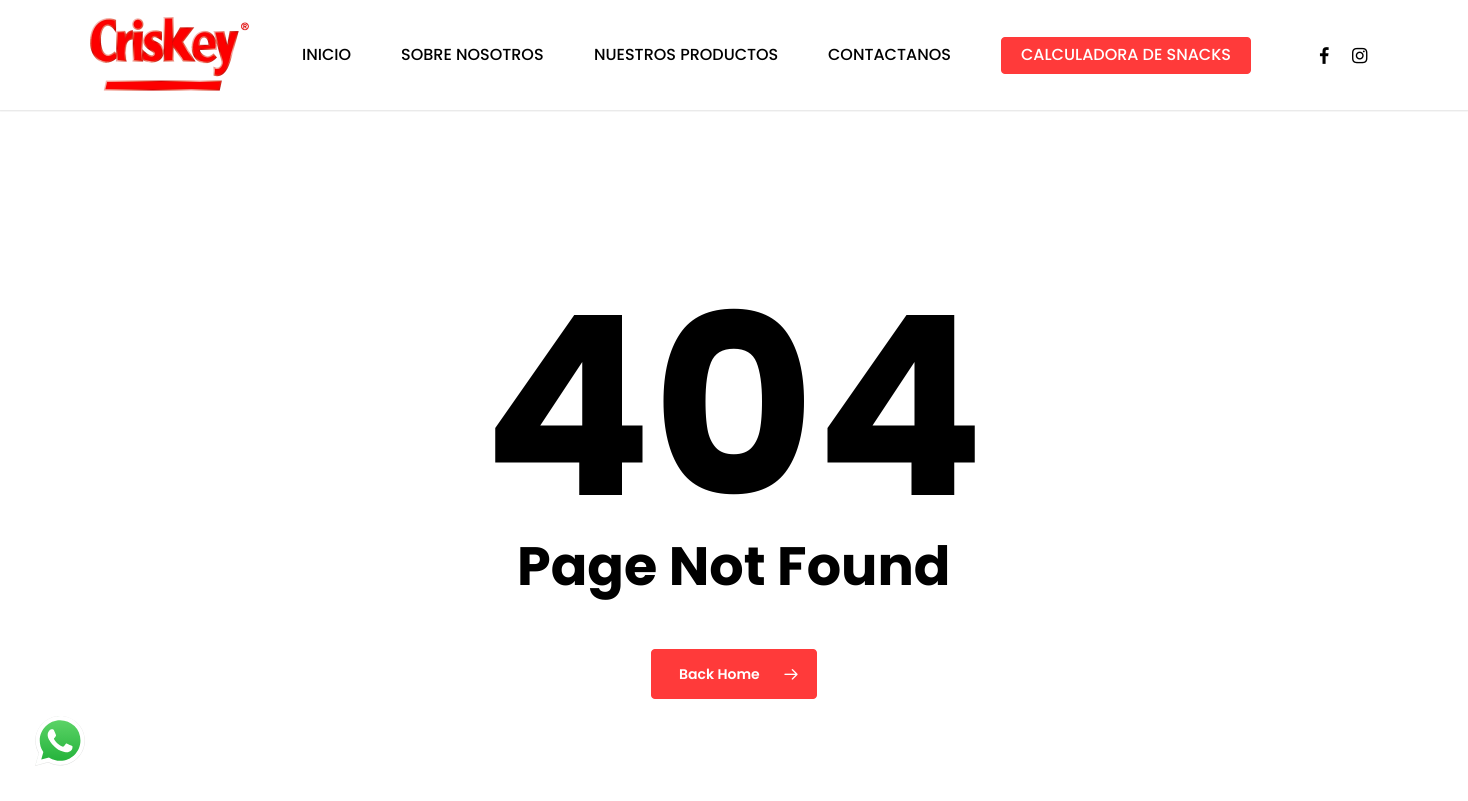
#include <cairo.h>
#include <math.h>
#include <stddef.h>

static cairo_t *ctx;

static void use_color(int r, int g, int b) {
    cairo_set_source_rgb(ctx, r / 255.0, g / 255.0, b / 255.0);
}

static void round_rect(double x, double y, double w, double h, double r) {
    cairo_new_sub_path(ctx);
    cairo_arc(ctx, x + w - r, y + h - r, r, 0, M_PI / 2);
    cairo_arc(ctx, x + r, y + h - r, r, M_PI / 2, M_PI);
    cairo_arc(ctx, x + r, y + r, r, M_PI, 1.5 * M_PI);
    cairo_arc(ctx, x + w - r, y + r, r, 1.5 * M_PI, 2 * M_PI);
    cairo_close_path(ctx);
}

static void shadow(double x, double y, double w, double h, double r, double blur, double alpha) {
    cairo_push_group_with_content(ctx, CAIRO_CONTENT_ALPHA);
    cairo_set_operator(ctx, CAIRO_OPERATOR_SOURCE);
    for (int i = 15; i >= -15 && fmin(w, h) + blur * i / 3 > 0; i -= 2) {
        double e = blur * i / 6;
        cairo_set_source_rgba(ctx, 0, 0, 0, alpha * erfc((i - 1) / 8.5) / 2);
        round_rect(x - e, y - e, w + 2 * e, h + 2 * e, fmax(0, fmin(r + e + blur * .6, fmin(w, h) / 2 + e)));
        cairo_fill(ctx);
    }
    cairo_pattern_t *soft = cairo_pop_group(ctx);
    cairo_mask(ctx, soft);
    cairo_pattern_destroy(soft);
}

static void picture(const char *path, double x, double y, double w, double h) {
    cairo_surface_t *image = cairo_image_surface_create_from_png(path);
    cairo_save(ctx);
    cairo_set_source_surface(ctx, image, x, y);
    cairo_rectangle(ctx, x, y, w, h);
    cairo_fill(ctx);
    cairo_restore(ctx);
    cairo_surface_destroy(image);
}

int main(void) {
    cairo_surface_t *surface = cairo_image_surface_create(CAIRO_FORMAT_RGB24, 1468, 801);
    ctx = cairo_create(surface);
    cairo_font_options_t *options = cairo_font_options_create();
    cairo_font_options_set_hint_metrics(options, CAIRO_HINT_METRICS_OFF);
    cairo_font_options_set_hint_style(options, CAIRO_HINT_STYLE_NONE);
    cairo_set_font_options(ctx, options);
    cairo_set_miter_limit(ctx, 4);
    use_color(255, 255, 255);
    cairo_paint(ctx);
    cairo_save(ctx);
    cairo_rectangle(ctx, 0, 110, 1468, 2);
    cairo_clip(ctx);
    use_color(0, 0, 0);
    shadow(0, 0, 1468, 110, 0, 1.5, 0.22);
    cairo_restore(ctx);
    picture("img1.png", 90, 17, 160, 74);
    cairo_select_font_face(ctx, "Poppins Medium", CAIRO_FONT_SLANT_NORMAL, CAIRO_FONT_WEIGHT_NORMAL);
    cairo_set_font_size(ctx, 16);
    use_color(0, 0, 0);
    cairo_move_to(ctx, 302, 60);
    cairo_show_text(ctx, "INICIO");
    cairo_move_to(ctx, 401, 60);
    cairo_show_text(ctx, "SOBRE NOSOTROS");
    cairo_move_to(ctx, 594, 60);
    cairo_show_text(ctx, "NUESTROS PRODUCTOS");
    cairo_move_to(ctx, 828, 60);
    cairo_show_text(ctx, "CONTACTANOS");
    use_color(255, 58, 58);
    round_rect(1001, 37, 250, 37, 4);
    cairo_fill(ctx);
    use_color(255, 255, 255);
    cairo_move_to(ctx, 1021, 60);
    cairo_show_text(ctx, "CALCULADORA DE SNACKS");
    picture("img2.png", 1319, 47, 10, 17);
    picture("img3.png", 1352, 47, 16, 17);
    cairo_select_font_face(ctx, "Poppins", CAIRO_FONT_SLANT_NORMAL, CAIRO_FONT_WEIGHT_BOLD);
    cairo_set_font_size(ctx, 250);
    use_color(0, 0, 0);
    cairo_move_to(ctx, 483, 495);
    cairo_show_text(ctx, "404");
    cairo_set_font_size(ctx, 54);
    cairo_move_to(ctx, 517, 585);
    cairo_show_text(ctx, "Page Not Found");
    use_color(255, 58, 58);
    round_rect(651, 649, 166, 50, 4);
    cairo_fill(ctx);
    cairo_select_font_face(ctx, "Poppins SemiBold", CAIRO_FONT_SLANT_NORMAL, CAIRO_FONT_WEIGHT_NORMAL);
    cairo_set_font_size(ctx, 14);
    use_color(255, 255, 255);
    cairo_move_to(ctx, 679, 679);
    cairo_show_text(ctx, "Back Home");
    picture("img4.png", 784, 669, 14, 11);
    picture("img5.png", 35, 716, 50, 50);
    cairo_surface_write_to_png(surface, "result.png");
    cairo_font_options_destroy(options);
    cairo_destroy(ctx);
    cairo_surface_destroy(surface);
    return 0;
}
